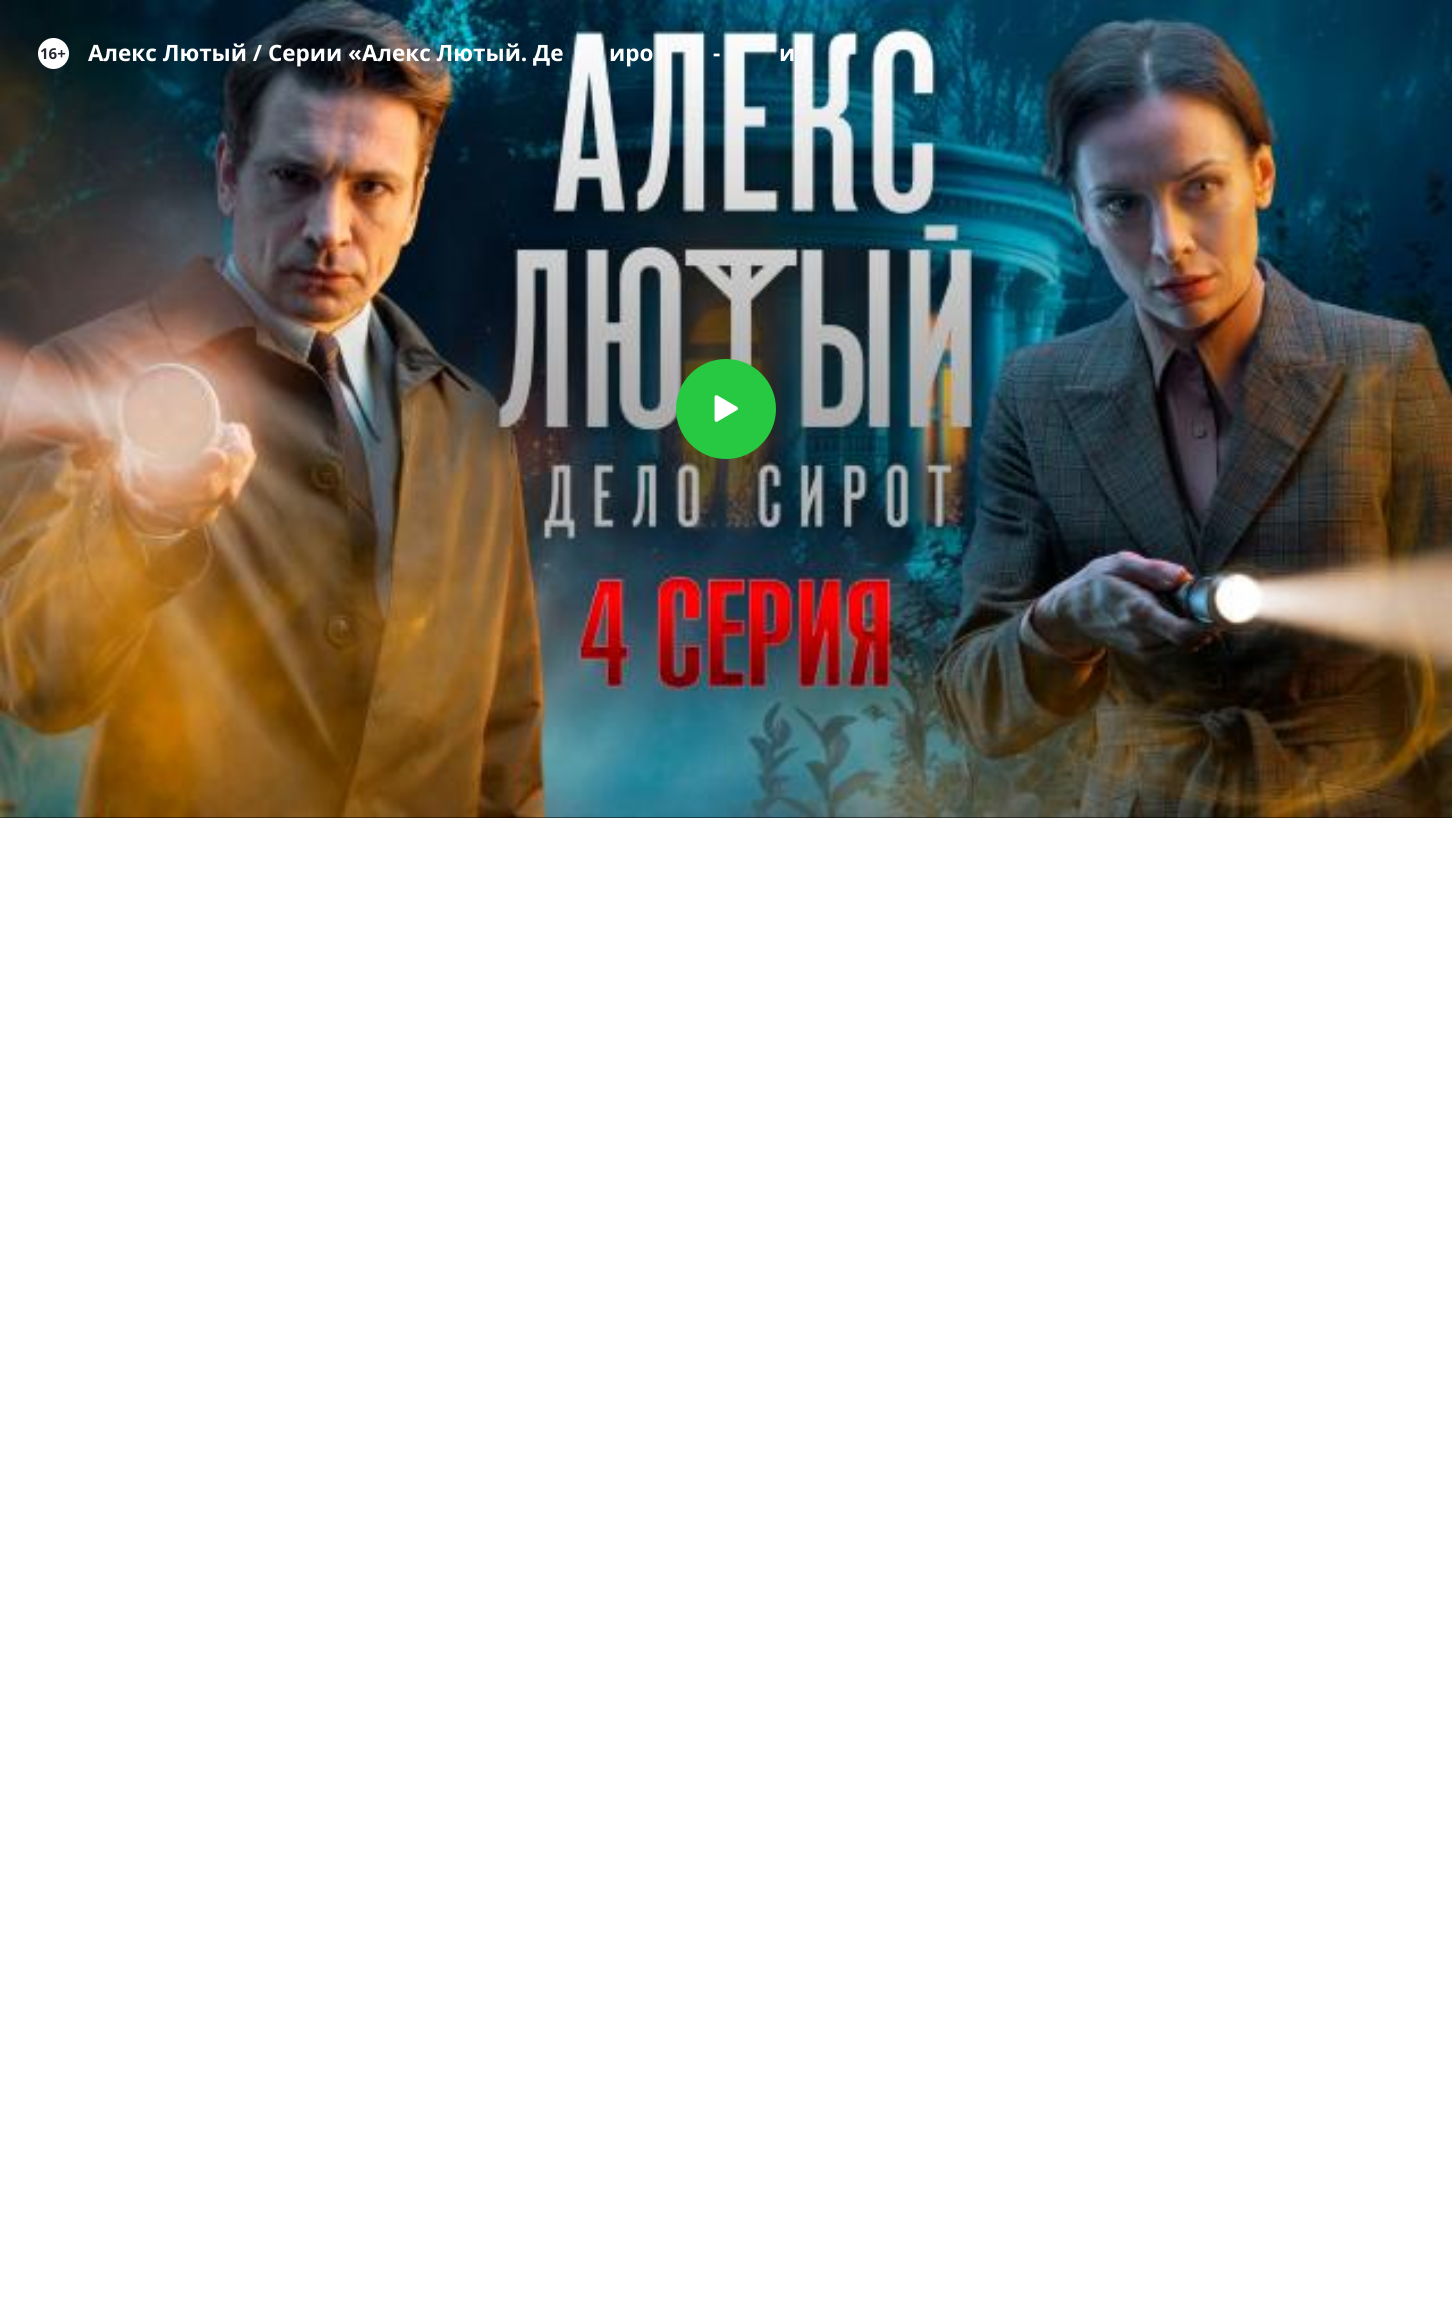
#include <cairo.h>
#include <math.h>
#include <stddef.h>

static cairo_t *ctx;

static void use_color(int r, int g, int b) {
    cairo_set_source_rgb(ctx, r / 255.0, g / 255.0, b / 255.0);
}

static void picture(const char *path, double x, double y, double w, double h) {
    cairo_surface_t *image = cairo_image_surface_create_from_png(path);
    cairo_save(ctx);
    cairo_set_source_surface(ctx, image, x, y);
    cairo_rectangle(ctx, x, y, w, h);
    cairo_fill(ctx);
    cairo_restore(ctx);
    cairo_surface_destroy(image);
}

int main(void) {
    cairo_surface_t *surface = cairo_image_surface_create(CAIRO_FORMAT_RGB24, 1452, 2298);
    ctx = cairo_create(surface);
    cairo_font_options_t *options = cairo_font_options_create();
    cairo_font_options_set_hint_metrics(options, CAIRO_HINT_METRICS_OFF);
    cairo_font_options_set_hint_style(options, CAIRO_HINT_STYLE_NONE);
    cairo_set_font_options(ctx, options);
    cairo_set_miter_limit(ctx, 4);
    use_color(255, 255, 255);
    cairo_paint(ctx);
    use_color(0, 0, 0);
    cairo_rectangle(ctx, 0, 817, 1452, 1);
    cairo_fill(ctx);
    picture("img1.png", 0, 0, 1452, 818);
    use_color(255, 255, 255);
    cairo_arc(ctx, 53.5, 53.5, 15.5, 0, 2 * M_PI);
    cairo_fill(ctx);
    cairo_select_font_face(ctx, "Open Sans", CAIRO_FONT_SLANT_NORMAL, CAIRO_FONT_WEIGHT_BOLD);
    cairo_set_font_size(ctx, 15);
    use_color(37, 40, 50);
    cairo_move_to(ctx, 40, 59);
    cairo_show_text(ctx, "16+");
    cairo_set_font_size(ctx, 22.5);
    use_color(255, 255, 255);
    cairo_move_to(ctx, 88, 61);
    cairo_show_text(ctx, "Алекс Лютый / Серии «Алекс Лютый. Де");
    cairo_move_to(ctx, 609, 61);
    cairo_show_text(ctx, "иро");
    cairo_move_to(ctx, 713, 61);
    cairo_show_text(ctx, "-");
    cairo_move_to(ctx, 779, 61);
    cairo_show_text(ctx, "и");
    use_color(39, 201, 66);
    cairo_new_path(ctx);
    cairo_arc(ctx, 726, 409, 50, 0, 2 * M_PI);
    cairo_fill(ctx);
    picture("img2.png", 714, 395, 24, 27);
    cairo_surface_write_to_png(surface, "result.png");
    cairo_font_options_destroy(options);
    cairo_destroy(ctx);
    cairo_surface_destroy(surface);
    return 0;
}
